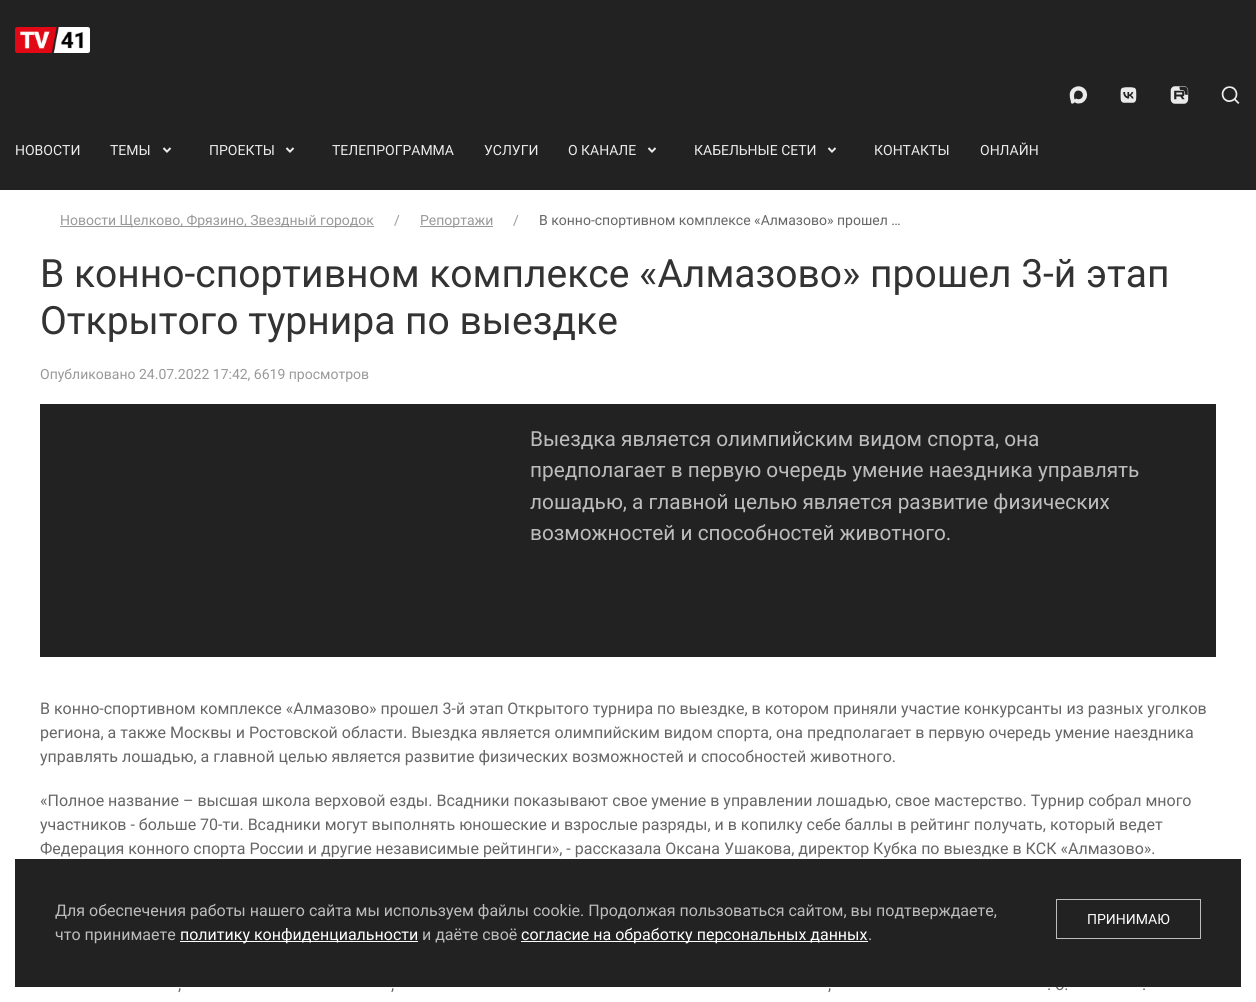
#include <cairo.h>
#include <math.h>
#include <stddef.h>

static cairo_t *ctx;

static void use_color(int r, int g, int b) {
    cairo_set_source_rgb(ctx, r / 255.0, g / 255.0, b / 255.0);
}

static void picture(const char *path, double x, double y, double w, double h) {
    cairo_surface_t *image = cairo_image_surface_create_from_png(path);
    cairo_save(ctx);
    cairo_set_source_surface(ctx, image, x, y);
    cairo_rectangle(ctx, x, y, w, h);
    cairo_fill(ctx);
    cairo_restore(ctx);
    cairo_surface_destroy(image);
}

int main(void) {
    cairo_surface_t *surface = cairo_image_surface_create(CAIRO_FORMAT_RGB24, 1256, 1002);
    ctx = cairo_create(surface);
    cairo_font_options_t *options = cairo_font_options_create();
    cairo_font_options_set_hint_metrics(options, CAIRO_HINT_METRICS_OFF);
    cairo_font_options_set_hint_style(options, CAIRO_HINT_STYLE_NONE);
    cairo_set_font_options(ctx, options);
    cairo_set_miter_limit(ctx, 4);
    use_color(255, 255, 255);
    cairo_paint(ctx);
    use_color(34, 34, 34);
    cairo_rectangle(ctx, 0, 0, 1256, 190);
    cairo_fill(ctx);
    picture("img1.png", 1069, 86, 19, 18);
    picture("img2.png", 1120, 87, 17, 16);
    picture("img3.png", 1170, 86, 19, 18);
    picture("img4.png", 1221, 86, 19, 18);
    picture("img5.png", 15, 27, 75, 26);
    cairo_select_font_face(ctx, "Roboto", CAIRO_FONT_SLANT_NORMAL, CAIRO_FONT_WEIGHT_NORMAL);
    cairo_set_font_size(ctx, 14);
    use_color(235, 235, 235);
    cairo_move_to(ctx, 15, 155);
    cairo_show_text(ctx, "НОВОСТИ");
    cairo_move_to(ctx, 110, 155);
    cairo_show_text(ctx, "ТЕМЫ");
    picture("img6.png", 162, 147, 10, 6);
    cairo_move_to(ctx, 209, 155);
    cairo_show_text(ctx, "ПРОЕКТЫ");
    picture("img6.png", 285, 147, 10, 6);
    cairo_move_to(ctx, 332, 155);
    cairo_show_text(ctx, "ТЕЛЕПРОГРАММА");
    cairo_move_to(ctx, 484, 155);
    cairo_show_text(ctx, "УСЛУГИ");
    cairo_move_to(ctx, 568, 155);
    cairo_show_text(ctx, "О КАНАЛЕ");
    picture("img6.png", 647, 147, 10, 6);
    cairo_move_to(ctx, 694, 155);
    cairo_show_text(ctx, "КАБЕЛЬНЫЕ СЕТИ");
    picture("img6.png", 827, 147, 10, 6);
    cairo_move_to(ctx, 874, 155);
    cairo_show_text(ctx, "КОНТАКТЫ");
    cairo_move_to(ctx, 980, 155);
    cairo_show_text(ctx, "ОНЛАЙН");
    use_color(153, 153, 153);
    cairo_rectangle(ctx, 60, 226, 314, 1);
    cairo_fill(ctx);
    cairo_move_to(ctx, 60, 225);
    cairo_show_text(ctx, "Новости Щелково, Фрязино, Звездный городок");
    cairo_move_to(ctx, 394, 225);
    cairo_show_text(ctx, "/");
    cairo_rectangle(ctx, 420, 226, 73, 1);
    cairo_fill(ctx);
    cairo_move_to(ctx, 420, 225);
    cairo_show_text(ctx, "Репортажи");
    cairo_move_to(ctx, 513, 225);
    cairo_show_text(ctx, "/");
    use_color(102, 102, 102);
    cairo_move_to(ctx, 539, 225);
    cairo_show_text(ctx, "В конно-спортивном комплексе «Алмазово» прошел …");
    cairo_set_font_size(ctx, 39);
    use_color(51, 51, 51);
    cairo_move_to(ctx, 40, 287);
    cairo_show_text(ctx, "В конно-спортивном комплексе «Алмазово» прошел 3-й этап");
    cairo_move_to(ctx, 40, 334);
    cairo_show_text(ctx, "Открытого турнира по выездке");
    cairo_set_font_size(ctx, 14);
    use_color(153, 153, 153);
    cairo_move_to(ctx, 40, 379);
    cairo_show_text(ctx, "Опубликовано 24.07.2022 17:42, 6619 просмотров");
    use_color(34, 34, 34);
    cairo_rectangle(ctx, 40, 404, 1176, 253);
    cairo_fill(ctx);
    cairo_set_font_size(ctx, 20.8);
    use_color(189, 189, 189);
    cairo_move_to(ctx, 530, 446);
    cairo_show_text(ctx, "Выездка является олимпийским видом спорта, она");
    cairo_move_to(ctx, 530, 477);
    cairo_show_text(ctx, "предполагает в первую очередь умение наездника управлять");
    cairo_move_to(ctx, 530, 509);
    cairo_show_text(ctx, "лошадью, а главной целью является развитие физических");
    cairo_move_to(ctx, 530, 540);
    cairo_show_text(ctx, "возможностей и способностей животного.");
    cairo_set_font_size(ctx, 16);
    use_color(102, 102, 102);
    cairo_move_to(ctx, 40, 714);
    cairo_show_text(ctx, "В конно-спортивном комплексе «Алмазово» прошел 3-й этап Открытого турнира по выездке, в котором приняли участие конкурсанты из разных уголков");
    cairo_move_to(ctx, 40, 738);
    cairo_show_text(ctx, "региона, а также Москвы и Ростовской области. Выездка является олимпийским видом спорта, она предполагает в первую очередь умение наездника");
    cairo_move_to(ctx, 40, 762);
    cairo_show_text(ctx, "управлять лошадью, а главной целью является развитие физических возможностей и способностей животного.");
    cairo_move_to(ctx, 40, 806);
    cairo_show_text(ctx, "«Полное название – высшая школа верховой езды. Всадники показывают свое умение в управлении лошадью, свое мастерство. Турнир собрал много");
    cairo_move_to(ctx, 40, 830);
    cairo_show_text(ctx, "участников - больше 70-ти. Всадники могут выполнять юношеские и взрослые разряды, и в копилку себе баллы в рейтинг получать, который ведет");
    cairo_move_to(ctx, 40, 854);
    cairo_show_text(ctx, "Федерация конного спорта России и другие независимые рейтинги», - рассказала Оксана Ушакова, директор Кубка по выездке в КСК «Алмазово».");
    cairo_move_to(ctx, 178, 990);
    cairo_show_text(ctx, ",");
    cairo_move_to(ctx, 391, 990);
    cairo_show_text(ctx, ",");
    cairo_move_to(ctx, 828, 990);
    cairo_show_text(ctx, ",");
    cairo_move_to(ctx, 1047, 990);
    cairo_show_text(ctx, ". о.");
    cairo_move_to(ctx, 1142, 990);
    cairo_show_text(ctx, ".");
    use_color(34, 34, 34);
    cairo_rectangle(ctx, 15, 859, 1226, 128);
    cairo_fill(ctx);
    use_color(189, 189, 189);
    cairo_move_to(ctx, 55, 916);
    cairo_show_text(ctx, "Для обеспечения работы нашего сайта мы используем файлы cookie. Продолжая пользоваться сайтом, вы подтверждаете,");
    cairo_move_to(ctx, 55, 940);
    cairo_show_text(ctx, "что принимаете");
    use_color(255, 255, 255);
    cairo_rectangle(ctx, 180, 941, 238, 1);
    cairo_fill(ctx);
    cairo_move_to(ctx, 180, 940);
    cairo_show_text(ctx, "политику конфиденциальности");
    use_color(189, 189, 189);
    cairo_move_to(ctx, 422, 940);
    cairo_show_text(ctx, "и даёте своё");
    use_color(255, 255, 255);
    cairo_rectangle(ctx, 521, 941, 347, 1);
    cairo_fill(ctx);
    cairo_move_to(ctx, 521, 940);
    cairo_show_text(ctx, "согласие на обработку персональных данных");
    use_color(189, 189, 189);
    cairo_move_to(ctx, 868, 940);
    cairo_show_text(ctx, ".");
    cairo_rectangle(ctx, 1056.5, 899.5, 144, 39);
    cairo_set_line_width(ctx, 1);
    cairo_stroke(ctx);
    cairo_set_font_size(ctx, 14);
    use_color(255, 255, 255);
    cairo_move_to(ctx, 1087, 924);
    cairo_show_text(ctx, "ПРИНИМАЮ");
    cairo_surface_write_to_png(surface, "result.png");
    cairo_font_options_destroy(options);
    cairo_destroy(ctx);
    cairo_surface_destroy(surface);
    return 0;
}
